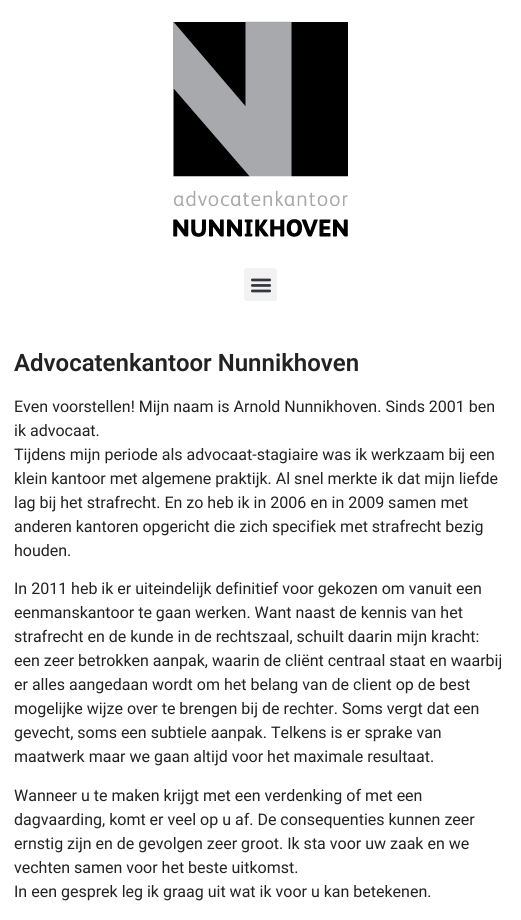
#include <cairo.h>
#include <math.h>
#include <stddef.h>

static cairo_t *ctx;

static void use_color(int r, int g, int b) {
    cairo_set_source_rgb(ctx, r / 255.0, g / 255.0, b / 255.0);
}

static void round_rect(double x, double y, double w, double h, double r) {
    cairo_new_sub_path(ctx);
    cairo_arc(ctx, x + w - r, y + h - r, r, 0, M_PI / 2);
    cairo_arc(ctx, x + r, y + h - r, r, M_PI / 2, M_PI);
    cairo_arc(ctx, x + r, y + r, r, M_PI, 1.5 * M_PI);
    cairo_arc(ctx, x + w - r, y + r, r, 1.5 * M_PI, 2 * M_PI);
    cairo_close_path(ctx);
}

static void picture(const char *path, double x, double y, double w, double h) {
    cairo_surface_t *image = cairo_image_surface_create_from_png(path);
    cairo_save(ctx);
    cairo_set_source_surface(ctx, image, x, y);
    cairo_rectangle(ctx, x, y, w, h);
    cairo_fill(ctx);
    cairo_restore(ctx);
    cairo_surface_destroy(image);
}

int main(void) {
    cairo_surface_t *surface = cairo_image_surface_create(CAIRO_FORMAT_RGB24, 521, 920);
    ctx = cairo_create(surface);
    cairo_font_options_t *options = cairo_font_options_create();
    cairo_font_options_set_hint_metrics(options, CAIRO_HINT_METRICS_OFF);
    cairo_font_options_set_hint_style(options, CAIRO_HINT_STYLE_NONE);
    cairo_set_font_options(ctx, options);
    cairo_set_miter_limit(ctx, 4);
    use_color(255, 255, 255);
    cairo_paint(ctx);
    picture("img1.png", 173, 21, 175, 216);
    use_color(242, 242, 242);
    round_rect(244, 268, 33, 33, 3);
    cairo_fill(ctx);
    picture("img2.png", 250, 278, 22, 15);
    cairo_select_font_face(ctx, "Roboto SemiBold", CAIRO_FONT_SLANT_NORMAL, CAIRO_FONT_WEIGHT_NORMAL);
    cairo_set_font_size(ctx, 24);
    use_color(34, 34, 34);
    cairo_move_to(ctx, 14, 371);
    cairo_show_text(ctx, "Advocatenkantoor Nunnikhoven");
    cairo_select_font_face(ctx, "Roboto", CAIRO_FONT_SLANT_NORMAL, CAIRO_FONT_WEIGHT_NORMAL);
    cairo_set_font_size(ctx, 16);
    cairo_move_to(ctx, 14, 412);
    cairo_show_text(ctx, "Even voorstellen! Mijn naam is Arnold Nunnikhoven. Sinds 2001 ben");
    cairo_move_to(ctx, 14, 436);
    cairo_show_text(ctx, "ik advocaat.");
    cairo_move_to(ctx, 14, 460);
    cairo_show_text(ctx, "Tijdens mijn periode als advocaat-stagiaire was ik werkzaam bij een");
    cairo_move_to(ctx, 14, 484);
    cairo_show_text(ctx, "klein kantoor met algemene praktijk. Al snel merkte ik dat mijn liefde");
    cairo_move_to(ctx, 14, 508);
    cairo_show_text(ctx, "lag bij het strafrecht. En zo heb ik in 2006 en in 2009 samen met");
    cairo_move_to(ctx, 14, 532);
    cairo_show_text(ctx, "anderen kantoren opgericht die zich specifiek met strafrecht bezig");
    cairo_move_to(ctx, 14, 556);
    cairo_show_text(ctx, "houden.");
    cairo_move_to(ctx, 14, 594);
    cairo_show_text(ctx, "In 2011 heb ik er uiteindelijk definitief voor gekozen om vanuit een");
    cairo_move_to(ctx, 14, 618);
    cairo_show_text(ctx, "eenmanskantoor te gaan werken. Want naast de kennis van het");
    cairo_move_to(ctx, 14, 642);
    cairo_show_text(ctx, "strafrecht en de kunde in de rechtszaal, schuilt daarin mijn kracht:");
    cairo_move_to(ctx, 14, 666);
    cairo_show_text(ctx, "een zeer betrokken aanpak, waarin de cliënt centraal staat en waarbij");
    cairo_move_to(ctx, 14, 690);
    cairo_show_text(ctx, "er alles aangedaan wordt om het belang van de client op de best");
    cairo_move_to(ctx, 14, 714);
    cairo_show_text(ctx, "mogelijke wijze over te brengen bij de rechter. Soms vergt dat een");
    cairo_move_to(ctx, 14, 738);
    cairo_show_text(ctx, "gevecht, soms een subtiele aanpak. Telkens is er sprake van");
    cairo_move_to(ctx, 14, 762);
    cairo_show_text(ctx, "maatwerk maar we gaan altijd voor het maximale resultaat.");
    cairo_move_to(ctx, 14, 801);
    cairo_show_text(ctx, "Wanneer u te maken krijgt met een verdenking of met een");
    cairo_move_to(ctx, 14, 825);
    cairo_show_text(ctx, "dagvaarding, komt er veel op u af. De consequenties kunnen zeer");
    cairo_move_to(ctx, 14, 849);
    cairo_show_text(ctx, "ernstig zijn en de gevolgen zeer groot. Ik sta voor uw zaak en we");
    cairo_move_to(ctx, 14, 873);
    cairo_show_text(ctx, "vechten samen voor het beste uitkomst.");
    cairo_move_to(ctx, 14, 897);
    cairo_show_text(ctx, "In een gesprek leg ik graag uit wat ik voor u kan betekenen.");
    cairo_surface_write_to_png(surface, "result.png");
    cairo_font_options_destroy(options);
    cairo_destroy(ctx);
    cairo_surface_destroy(surface);
    return 0;
}
